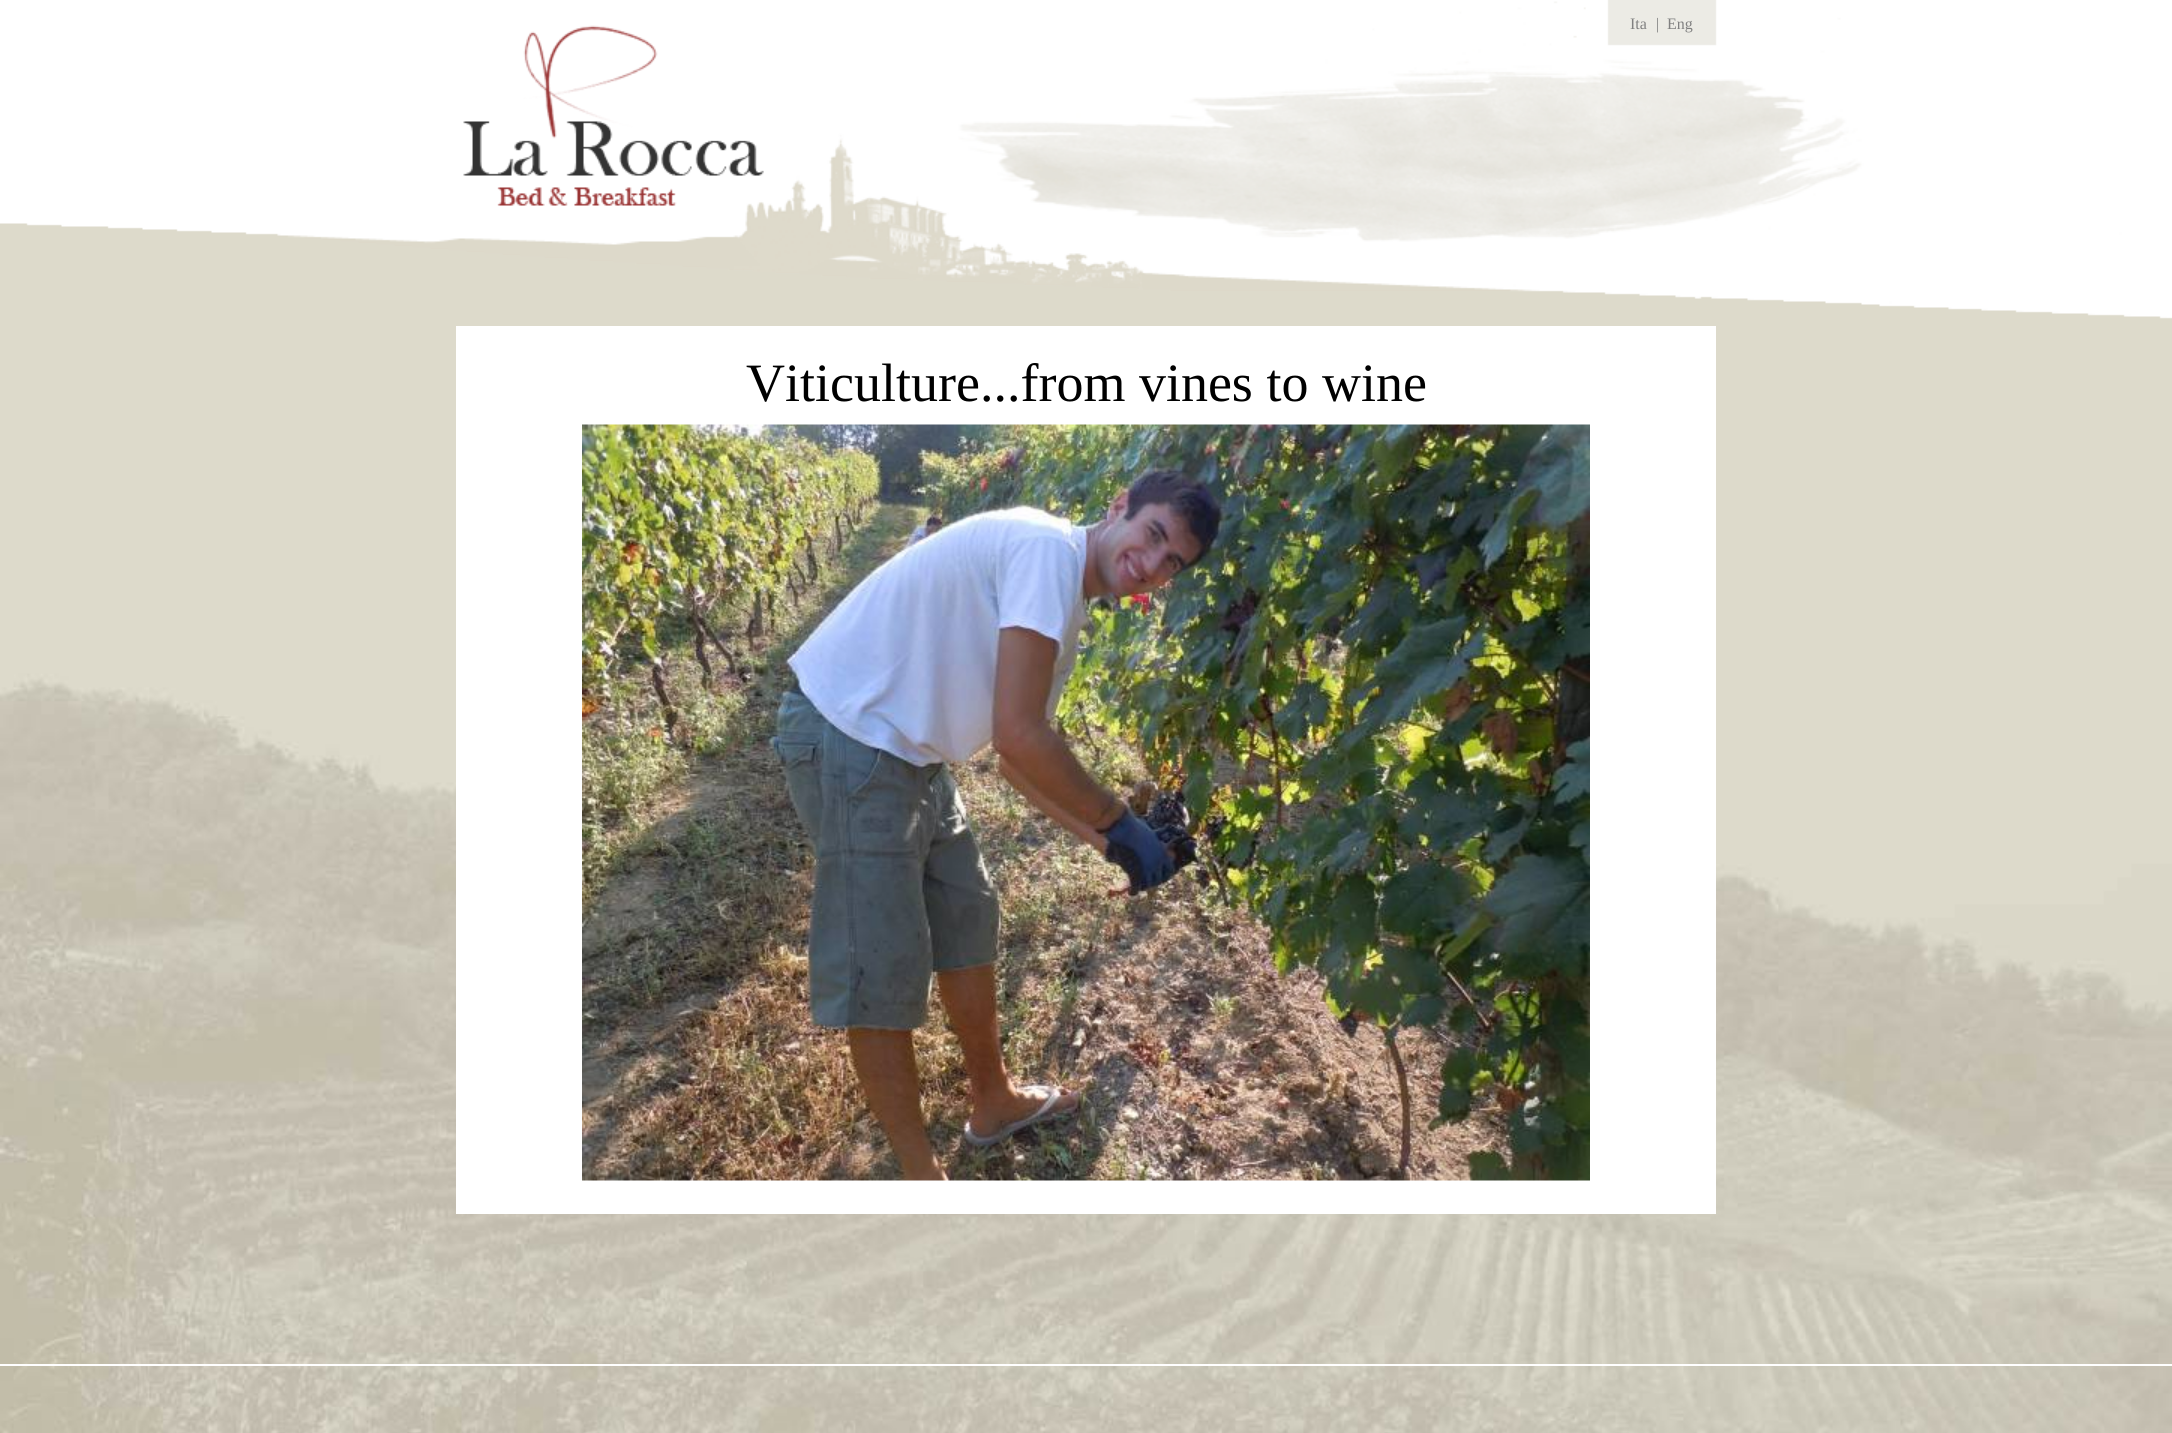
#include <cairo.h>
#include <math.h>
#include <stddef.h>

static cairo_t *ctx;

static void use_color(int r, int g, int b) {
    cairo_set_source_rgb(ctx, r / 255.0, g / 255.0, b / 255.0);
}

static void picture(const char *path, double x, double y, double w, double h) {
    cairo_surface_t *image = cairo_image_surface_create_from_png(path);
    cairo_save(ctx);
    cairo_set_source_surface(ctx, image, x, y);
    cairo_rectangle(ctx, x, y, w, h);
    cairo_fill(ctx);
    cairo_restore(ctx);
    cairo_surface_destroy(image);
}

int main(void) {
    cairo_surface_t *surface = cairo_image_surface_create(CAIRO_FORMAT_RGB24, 2172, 1433);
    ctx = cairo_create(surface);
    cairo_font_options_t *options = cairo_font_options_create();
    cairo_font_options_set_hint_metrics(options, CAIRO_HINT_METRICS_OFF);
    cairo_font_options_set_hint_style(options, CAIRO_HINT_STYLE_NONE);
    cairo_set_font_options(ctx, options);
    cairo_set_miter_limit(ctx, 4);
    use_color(255, 255, 255);
    cairo_paint(ctx);
    picture("img4.png", 0, 223, 2172, 1210);
    picture("img1.png", 0, 0, 2172, 319);
    picture("img2.png", 463, 25, 301, 181);
    cairo_select_font_face(ctx, "Liberation Serif", CAIRO_FONT_SLANT_NORMAL, CAIRO_FONT_WEIGHT_NORMAL);
    cairo_set_font_size(ctx, 16);
    use_color(128, 128, 128);
    cairo_move_to(ctx, 1630, 29);
    cairo_show_text(ctx, "Ita");
    cairo_move_to(ctx, 1656, 29);
    cairo_show_text(ctx, "|");
    cairo_move_to(ctx, 1667, 29);
    cairo_show_text(ctx, "Eng");
    use_color(255, 255, 255);
    cairo_rectangle(ctx, 456, 326, 1260, 888);
    cairo_fill(ctx);
    cairo_set_font_size(ctx, 54);
    use_color(0, 0, 0);
    cairo_move_to(ctx, 746, 401);
    cairo_show_text(ctx, "Viticulture...from vines to wine");
    picture("img3.png", 582, 424, 1008, 757);
    use_color(255, 255, 255);
    cairo_rectangle(ctx, 0, 1364, 2172, 2);
    cairo_fill(ctx);
    cairo_surface_write_to_png(surface, "result.png");
    cairo_font_options_destroy(options);
    cairo_destroy(ctx);
    cairo_surface_destroy(surface);
    return 0;
}
